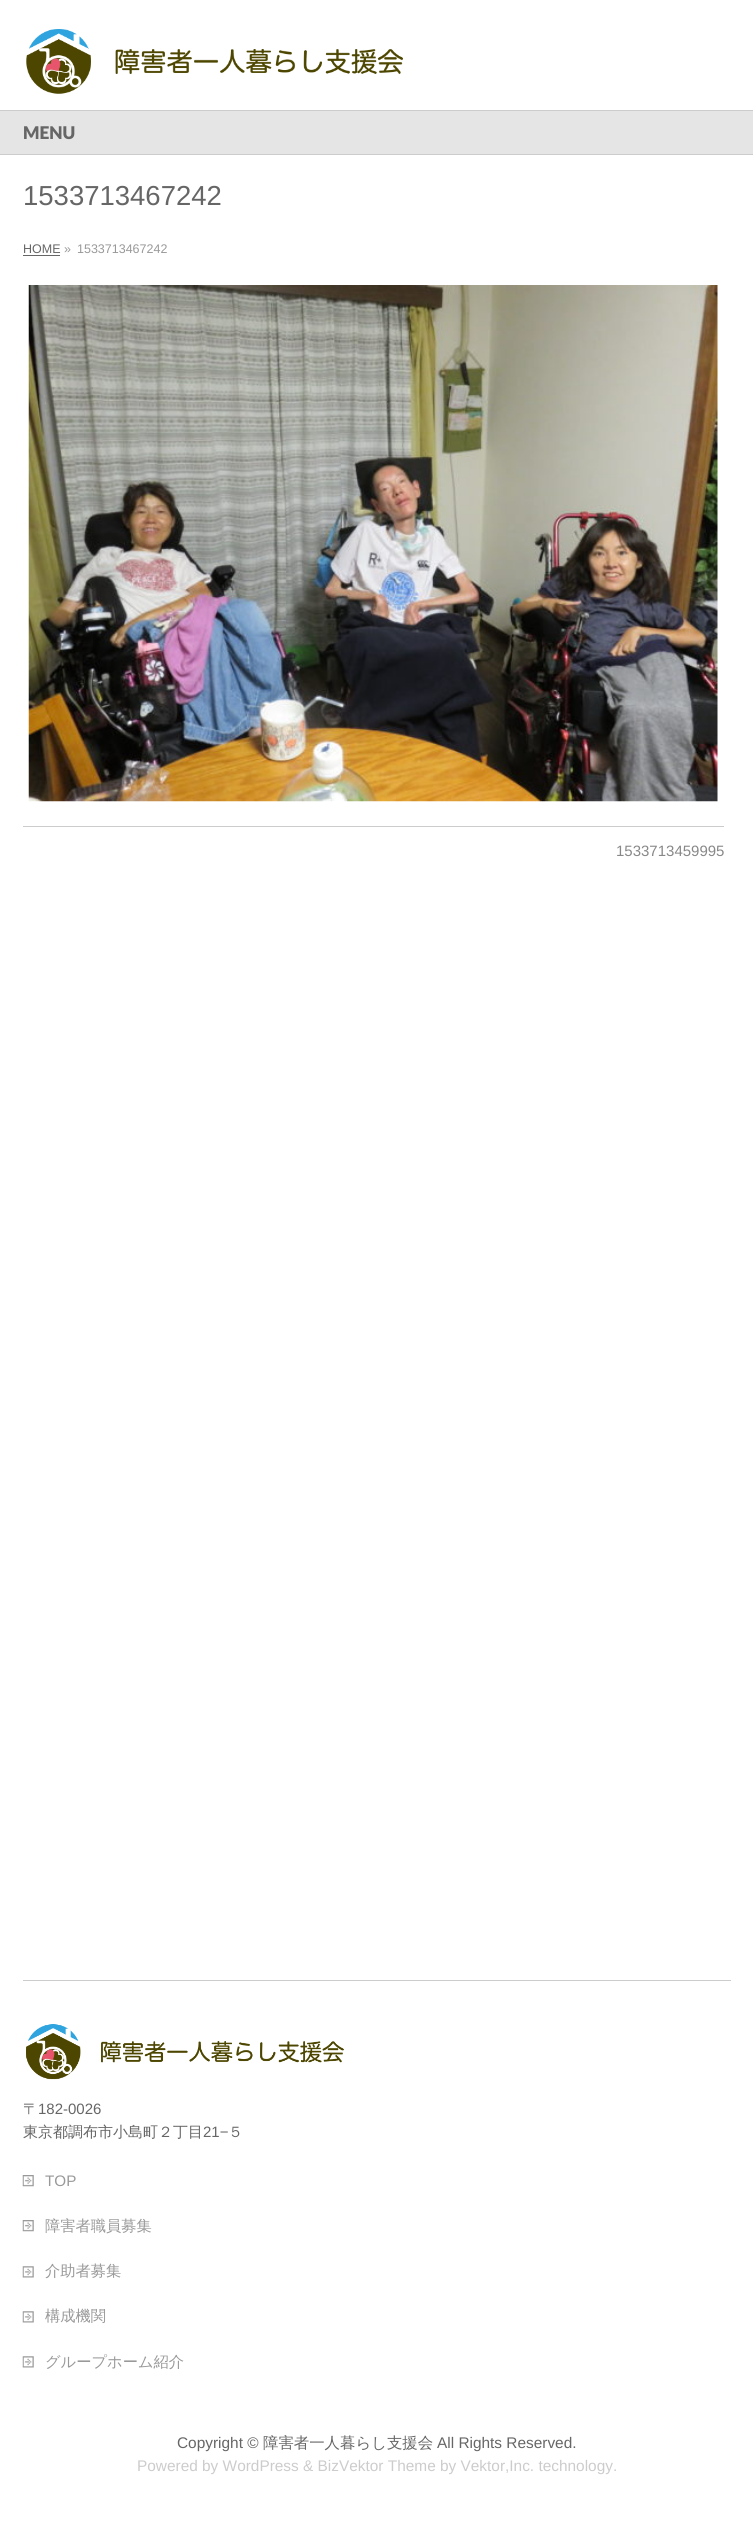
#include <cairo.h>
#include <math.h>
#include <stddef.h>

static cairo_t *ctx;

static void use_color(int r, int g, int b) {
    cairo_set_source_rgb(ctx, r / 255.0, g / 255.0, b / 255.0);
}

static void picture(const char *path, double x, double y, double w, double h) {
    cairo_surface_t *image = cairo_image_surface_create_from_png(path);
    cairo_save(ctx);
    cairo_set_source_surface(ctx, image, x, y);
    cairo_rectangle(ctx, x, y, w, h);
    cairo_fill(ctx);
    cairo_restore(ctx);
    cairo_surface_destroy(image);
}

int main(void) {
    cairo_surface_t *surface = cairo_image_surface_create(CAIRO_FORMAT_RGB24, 753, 2528);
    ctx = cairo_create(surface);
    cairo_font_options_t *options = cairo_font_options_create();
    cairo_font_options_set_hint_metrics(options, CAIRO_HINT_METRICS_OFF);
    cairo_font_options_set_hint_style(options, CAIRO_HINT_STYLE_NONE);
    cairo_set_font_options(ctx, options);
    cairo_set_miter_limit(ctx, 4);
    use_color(255, 255, 255);
    cairo_paint(ctx);
    picture("img1.png", 26, 29, 377, 65);
    use_color(204, 204, 204);
    cairo_rectangle(ctx, 0, 110, 753, 1);
    cairo_fill(ctx);
    cairo_rectangle(ctx, 0, 154, 753, 1);
    cairo_fill(ctx);
    use_color(229, 229, 229);
    cairo_rectangle(ctx, 0, 111, 753, 43);
    cairo_fill(ctx);
    cairo_select_font_face(ctx, "Lato Black", CAIRO_FONT_SLANT_NORMAL, CAIRO_FONT_WEIGHT_NORMAL);
    cairo_set_font_size(ctx, 17.5);
    use_color(102, 102, 102);
    cairo_move_to(ctx, 23, 139);
    cairo_show_text(ctx, "MENU");
    cairo_select_font_face(ctx, "Liberation Sans", CAIRO_FONT_SLANT_NORMAL, CAIRO_FONT_WEIGHT_NORMAL);
    cairo_set_font_size(ctx, 27.5);
    cairo_move_to(ctx, 23, 205);
    cairo_show_text(ctx, "1533713467242");
    cairo_set_font_size(ctx, 12.5);
    cairo_move_to(ctx, 23, 253);
    cairo_show_text(ctx, "HOME");
    cairo_rectangle(ctx, 23, 255, 37, 1);
    cairo_fill(ctx);
    use_color(153, 153, 153);
    cairo_move_to(ctx, 64, 253);
    cairo_show_text(ctx, "»");
    cairo_move_to(ctx, 77, 253);
    cairo_show_text(ctx, "1533713467242");
    picture("img2.png", 28, 285, 690, 517);
    use_color(204, 204, 204);
    cairo_rectangle(ctx, 23, 826, 701, 1);
    cairo_fill(ctx);
    cairo_set_font_size(ctx, 15);
    use_color(136, 136, 136);
    cairo_move_to(ctx, 616, 856);
    cairo_show_text(ctx, "1533713459995");
    use_color(204, 204, 204);
    cairo_rectangle(ctx, 23, 1980, 708, 1);
    cairo_fill(ctx);
    picture("img3.png", 26, 2024, 318, 56);
    cairo_select_font_face(ctx, "WenQuanYi Zen Hei Medium", CAIRO_FONT_SLANT_NORMAL, CAIRO_FONT_WEIGHT_NORMAL);
    use_color(102, 102, 102);
    cairo_move_to(ctx, 23, 2114);
    cairo_show_text(ctx, "〒");
    cairo_select_font_face(ctx, "Liberation Sans", CAIRO_FONT_SLANT_NORMAL, CAIRO_FONT_WEIGHT_NORMAL);
    cairo_move_to(ctx, 38, 2114);
    cairo_show_text(ctx, "182-0026");
    cairo_select_font_face(ctx, "WenQuanYi Zen Hei Medium", CAIRO_FONT_SLANT_NORMAL, CAIRO_FONT_WEIGHT_NORMAL);
    cairo_move_to(ctx, 23, 2137);
    cairo_show_text(ctx, "東京都調布市小島町２丁目");
    cairo_select_font_face(ctx, "Liberation Sans", CAIRO_FONT_SLANT_NORMAL, CAIRO_FONT_WEIGHT_NORMAL);
    cairo_move_to(ctx, 203, 2137);
    cairo_show_text(ctx, "21−");
    cairo_select_font_face(ctx, "WenQuanYi Zen Hei Medium", CAIRO_FONT_SLANT_NORMAL, CAIRO_FONT_WEIGHT_NORMAL);
    cairo_move_to(ctx, 228, 2137);
    cairo_show_text(ctx, "５");
    picture("img4.png", 22, 2175, 12, 12);
    cairo_select_font_face(ctx, "Liberation Sans", CAIRO_FONT_SLANT_NORMAL, CAIRO_FONT_WEIGHT_NORMAL);
    cairo_set_font_size(ctx, 15.25);
    use_color(153, 153, 153);
    cairo_move_to(ctx, 45, 2186);
    cairo_show_text(ctx, "TOP");
    picture("img4.png", 22, 2220, 12, 12);
    cairo_select_font_face(ctx, "WenQuanYi Zen Hei Medium", CAIRO_FONT_SLANT_NORMAL, CAIRO_FONT_WEIGHT_NORMAL);
    cairo_move_to(ctx, 45, 2231);
    cairo_show_text(ctx, "障害者職員募集");
    picture("img5.png", 22, 2266, 12, 12);
    cairo_move_to(ctx, 45, 2276);
    cairo_show_text(ctx, "介助者募集");
    picture("img5.png", 22, 2311, 12, 12);
    cairo_move_to(ctx, 45, 2321);
    cairo_show_text(ctx, "構成機関");
    picture("img5.png", 22, 2356, 12, 12);
    cairo_move_to(ctx, 45, 2367);
    cairo_show_text(ctx, "グループホーム紹介");
    cairo_select_font_face(ctx, "Liberation Sans", CAIRO_FONT_SLANT_NORMAL, CAIRO_FONT_WEIGHT_NORMAL);
    cairo_set_font_size(ctx, 15.4);
    use_color(102, 102, 102);
    cairo_move_to(ctx, 177, 2448);
    cairo_show_text(ctx, "Copyright ©");
    cairo_select_font_face(ctx, "WenQuanYi Zen Hei Medium", CAIRO_FONT_SLANT_NORMAL, CAIRO_FONT_WEIGHT_NORMAL);
    cairo_move_to(ctx, 263, 2448);
    cairo_show_text(ctx, "障害者一人暮らし支援会");
    cairo_select_font_face(ctx, "Liberation Sans", CAIRO_FONT_SLANT_NORMAL, CAIRO_FONT_WEIGHT_NORMAL);
    cairo_move_to(ctx, 437, 2448);
    cairo_show_text(ctx, "All Rights Reserved.");
    use_color(204, 204, 204);
    cairo_move_to(ctx, 137, 2471);
    cairo_show_text(ctx, "Powered by WordPress & BizVektor Theme by Vektor,Inc. technology.");
    cairo_surface_write_to_png(surface, "result.png");
    cairo_font_options_destroy(options);
    cairo_destroy(ctx);
    cairo_surface_destroy(surface);
    return 0;
}
